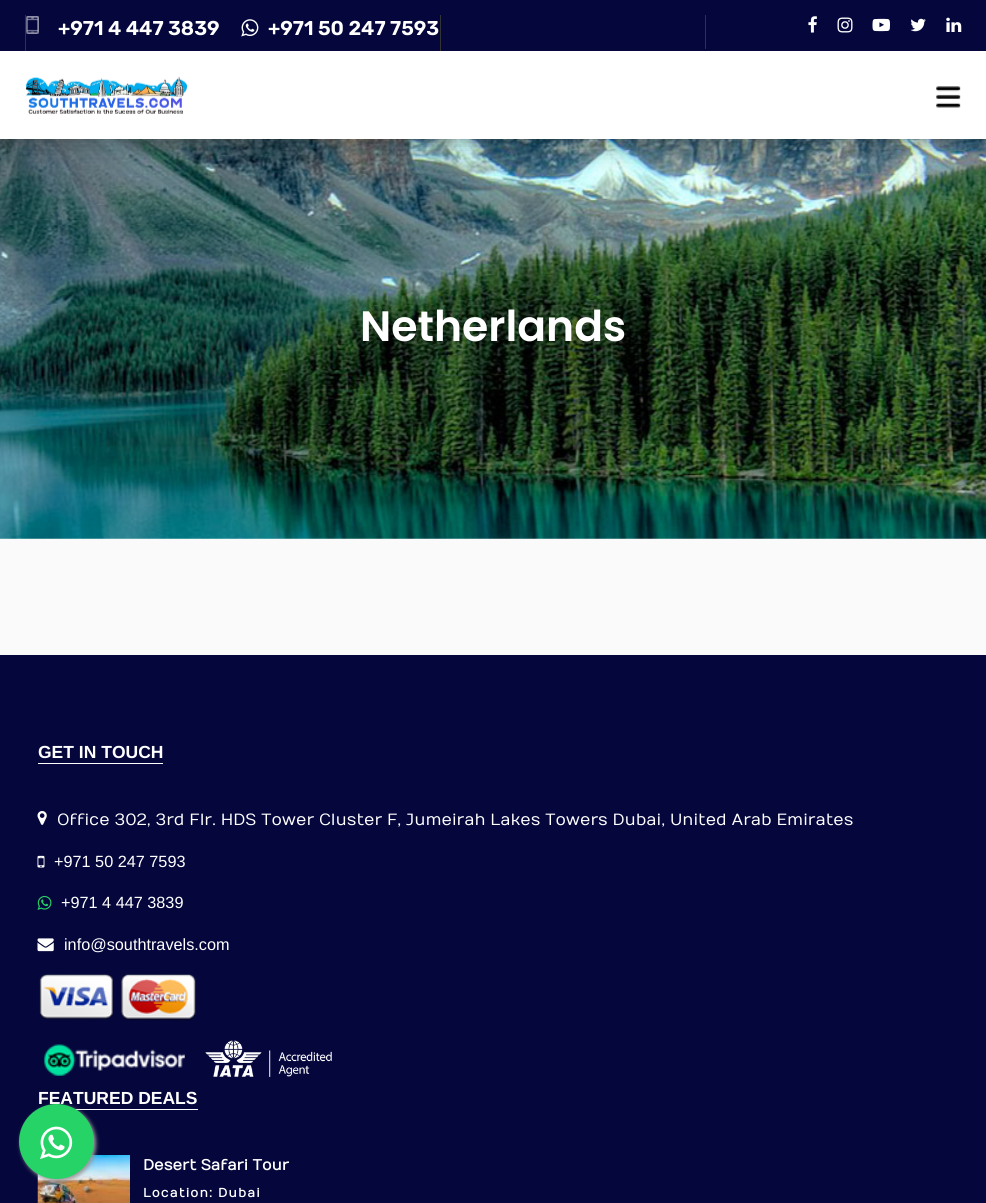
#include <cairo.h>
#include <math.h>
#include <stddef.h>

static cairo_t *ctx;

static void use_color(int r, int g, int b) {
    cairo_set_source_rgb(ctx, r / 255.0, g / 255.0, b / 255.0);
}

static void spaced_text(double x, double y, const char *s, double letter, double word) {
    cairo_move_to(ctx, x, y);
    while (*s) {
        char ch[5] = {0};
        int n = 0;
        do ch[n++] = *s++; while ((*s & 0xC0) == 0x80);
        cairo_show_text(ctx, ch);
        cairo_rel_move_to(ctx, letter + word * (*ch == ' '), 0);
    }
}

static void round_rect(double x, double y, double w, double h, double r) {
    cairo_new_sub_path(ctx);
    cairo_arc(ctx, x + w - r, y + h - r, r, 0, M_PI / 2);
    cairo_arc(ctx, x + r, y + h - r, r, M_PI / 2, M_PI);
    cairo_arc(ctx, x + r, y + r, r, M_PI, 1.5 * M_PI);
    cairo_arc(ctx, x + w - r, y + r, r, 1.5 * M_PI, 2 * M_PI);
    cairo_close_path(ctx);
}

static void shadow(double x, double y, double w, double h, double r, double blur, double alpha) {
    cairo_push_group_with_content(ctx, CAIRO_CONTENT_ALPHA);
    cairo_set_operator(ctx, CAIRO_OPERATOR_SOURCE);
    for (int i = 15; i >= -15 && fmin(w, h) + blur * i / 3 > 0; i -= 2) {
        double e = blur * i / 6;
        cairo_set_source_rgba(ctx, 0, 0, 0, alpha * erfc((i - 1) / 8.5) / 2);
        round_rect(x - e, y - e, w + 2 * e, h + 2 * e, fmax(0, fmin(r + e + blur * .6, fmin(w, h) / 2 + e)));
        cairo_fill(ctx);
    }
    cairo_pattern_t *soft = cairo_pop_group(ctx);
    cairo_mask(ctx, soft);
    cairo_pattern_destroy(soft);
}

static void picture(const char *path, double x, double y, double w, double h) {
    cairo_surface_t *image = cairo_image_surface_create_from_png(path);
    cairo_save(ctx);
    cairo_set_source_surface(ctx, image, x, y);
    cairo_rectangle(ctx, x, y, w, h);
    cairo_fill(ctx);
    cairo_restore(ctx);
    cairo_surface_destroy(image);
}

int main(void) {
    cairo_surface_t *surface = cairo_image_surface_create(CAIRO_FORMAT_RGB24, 986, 1203);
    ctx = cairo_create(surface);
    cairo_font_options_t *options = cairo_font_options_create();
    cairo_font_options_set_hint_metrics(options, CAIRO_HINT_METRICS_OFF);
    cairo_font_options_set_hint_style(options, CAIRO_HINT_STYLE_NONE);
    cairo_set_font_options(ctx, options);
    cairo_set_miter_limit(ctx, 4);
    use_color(250, 250, 250);
    cairo_paint(ctx);
    picture("img10.png", 0, 139, 986, 400);
    use_color(0, 0, 0);
    shadow(0, 6, 986, 139, 0, 12.5, 0.3);
    use_color(5, 7, 60);
    cairo_rectangle(ctx, 0, 0, 986, 51);
    cairo_fill(ctx);
    use_color(51, 51, 51);
    cairo_rectangle(ctx, 440, 15, 1, 36);
    cairo_fill(ctx);
    cairo_rectangle(ctx, 25, 15, 1, 36);
    cairo_fill(ctx);
    picture("img1.png", 26, 16, 13, 18);
    cairo_select_font_face(ctx, "Rubik SemiBold", CAIRO_FONT_SLANT_NORMAL, CAIRO_FONT_WEIGHT_NORMAL);
    cairo_set_font_size(ctx, 20);
    use_color(255, 255, 255);
    cairo_move_to(ctx, 58, 35);
    cairo_show_text(ctx, "+971 4 447 3839");
    picture("img2.png", 241, 19, 18, 18);
    cairo_move_to(ctx, 268, 35);
    cairo_show_text(ctx, "+971 50 247 7593");
    use_color(51, 51, 51);
    cairo_rectangle(ctx, 705, 15, 1, 34);
    cairo_fill(ctx);
    picture("img3.png", 808, 16, 9, 17);
    picture("img4.png", 837, 17, 16, 16);
    picture("img5.png", 872, 18, 18, 14);
    picture("img6.png", 910, 18, 16, 14);
    picture("img7.png", 946, 17, 16, 15);
    use_color(50, 50, 50);
    shadow(1, 53, 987, 87, 0, 1, 0.11);
    use_color(255, 255, 255);
    cairo_rectangle(ctx, 0, 51, 986, 88);
    cairo_fill(ctx);
    picture("img8.png", 25, 76, 163, 38);
    picture("img9.png", 936, 86, 25, 22);
    cairo_select_font_face(ctx, "Poppins SemiBold", CAIRO_FONT_SLANT_NORMAL, CAIRO_FONT_WEIGHT_NORMAL);
    cairo_set_font_size(ctx, 42.5);
    cairo_move_to(ctx, 360, 341);
    cairo_show_text(ctx, "Netherlands");
    use_color(5, 7, 60);
    cairo_rectangle(ctx, 0, 655, 986, 548);
    cairo_fill(ctx);
    cairo_select_font_face(ctx, "Liberation Sans", CAIRO_FONT_SLANT_NORMAL, CAIRO_FONT_WEIGHT_BOLD);
    cairo_set_font_size(ctx, 17.5);
    use_color(255, 255, 255);
    cairo_move_to(ctx, 38, 758);
    cairo_show_text(ctx, "GET IN TOUCH");
    cairo_rectangle(ctx, 38, 763, 125, 1);
    cairo_fill(ctx);
    picture("img11.png", 37, 811, 10, 14);
    cairo_select_font_face(ctx, "Numans", CAIRO_FONT_SLANT_NORMAL, CAIRO_FONT_WEIGHT_NORMAL);
    cairo_set_font_size(ctx, 16.25);
    cairo_move_to(ctx, 57, 825);
    cairo_show_text(ctx, "Office 302, 3rd Flr. HDS Tower Cluster F, Jumeirah Lakes Towers Dubai, United Arab Emirates");
    picture("img12.png", 37, 855, 8, 13);
    cairo_select_font_face(ctx, "Liberation Sans", CAIRO_FONT_SLANT_NORMAL, CAIRO_FONT_WEIGHT_NORMAL);
    cairo_move_to(ctx, 54, 867);
    cairo_show_text(ctx, "+971 50 247 7593");
    picture("img13.png", 37, 895, 15, 15);
    cairo_move_to(ctx, 61, 908);
    cairo_show_text(ctx, "+971 4 447 3839");
    picture("img14.png", 37, 938, 17, 14);
    cairo_move_to(ctx, 64, 950);
    cairo_show_text(ctx, "info@southtravels.com");
    picture("img15.png", 39, 974, 75, 46);
    picture("img16.png", 121, 974, 75, 47);
    picture("img17.png", 44, 1044, 141, 32);
    picture("img18.png", 205, 1040, 127, 37);
    cairo_select_font_face(ctx, "Liberation Sans", CAIRO_FONT_SLANT_NORMAL, CAIRO_FONT_WEIGHT_BOLD);
    cairo_set_font_size(ctx, 17.5);
    cairo_move_to(ctx, 38, 1104);
    cairo_show_text(ctx, "FEATURED DEALS");
    cairo_rectangle(ctx, 75, 1109, 123, 1);
    cairo_fill(ctx);
    picture("img19.png", 37, 1155, 93, 48);
    cairo_select_font_face(ctx, "Numans", CAIRO_FONT_SLANT_NORMAL, CAIRO_FONT_WEIGHT_BOLD);
    cairo_set_font_size(ctx, 15);
    cairo_move_to(ctx, 143, 1170);
    cairo_show_text(ctx, "Desert Safari Tour");
    cairo_set_font_size(ctx, 12.5);
    spaced_text(143, 1197, "Location: Dubai", 1.1, 0);
    use_color(153, 153, 153);
    shadow(21, 1106, 75, 75, 37.5, 2, 1);
    use_color(37, 211, 102);
    cairo_arc(ctx, 56.5, 1141.5, 37.5, 0, 2 * M_PI);
    cairo_fill(ctx);
    picture("img20.png", 40, 1126, 33, 33);
    cairo_surface_write_to_png(surface, "result.png");
    cairo_font_options_destroy(options);
    cairo_destroy(ctx);
    cairo_surface_destroy(surface);
    return 0;
}
